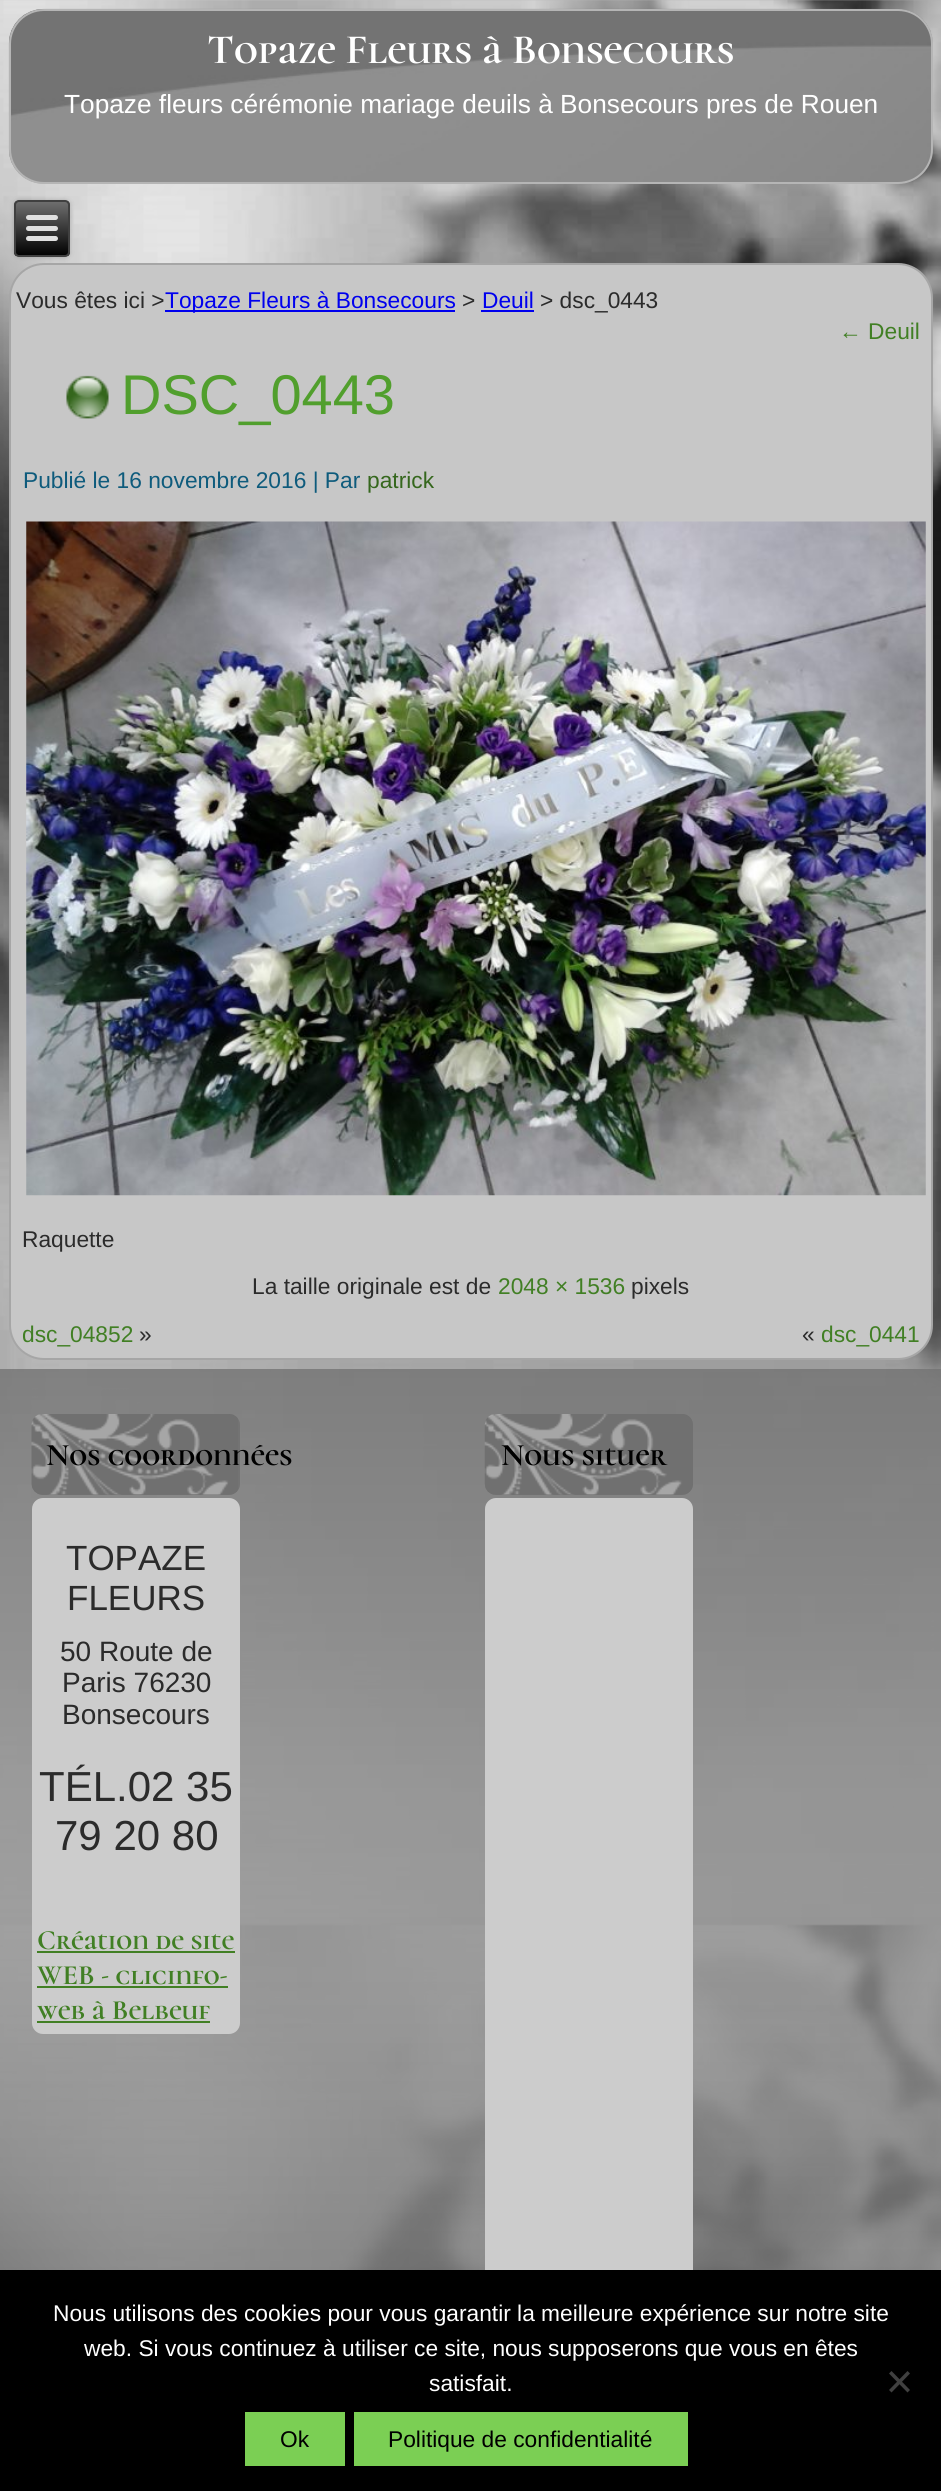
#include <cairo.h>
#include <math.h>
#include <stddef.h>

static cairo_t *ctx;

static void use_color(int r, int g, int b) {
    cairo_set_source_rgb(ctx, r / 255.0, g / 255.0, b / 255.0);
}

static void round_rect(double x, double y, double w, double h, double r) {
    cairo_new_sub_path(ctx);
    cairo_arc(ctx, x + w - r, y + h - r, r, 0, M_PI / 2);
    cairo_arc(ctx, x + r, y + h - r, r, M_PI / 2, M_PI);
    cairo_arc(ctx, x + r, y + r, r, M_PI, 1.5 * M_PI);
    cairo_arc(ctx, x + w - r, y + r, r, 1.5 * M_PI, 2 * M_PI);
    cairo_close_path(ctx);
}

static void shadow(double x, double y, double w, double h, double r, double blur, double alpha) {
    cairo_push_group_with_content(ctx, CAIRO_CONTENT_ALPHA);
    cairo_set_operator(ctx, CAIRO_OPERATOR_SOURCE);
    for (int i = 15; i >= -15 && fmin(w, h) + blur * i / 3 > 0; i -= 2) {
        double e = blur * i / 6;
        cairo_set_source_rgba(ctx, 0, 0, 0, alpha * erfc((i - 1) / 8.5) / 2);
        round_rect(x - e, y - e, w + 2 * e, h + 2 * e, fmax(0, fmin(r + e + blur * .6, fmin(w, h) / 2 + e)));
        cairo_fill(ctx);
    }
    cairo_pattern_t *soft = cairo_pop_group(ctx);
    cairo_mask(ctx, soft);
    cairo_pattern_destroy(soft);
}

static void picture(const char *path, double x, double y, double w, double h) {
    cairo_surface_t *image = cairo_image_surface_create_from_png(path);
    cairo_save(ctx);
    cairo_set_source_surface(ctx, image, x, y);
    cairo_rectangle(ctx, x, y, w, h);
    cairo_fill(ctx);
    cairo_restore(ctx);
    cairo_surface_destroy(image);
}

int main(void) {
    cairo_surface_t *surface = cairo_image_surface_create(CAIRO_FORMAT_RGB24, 941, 2491);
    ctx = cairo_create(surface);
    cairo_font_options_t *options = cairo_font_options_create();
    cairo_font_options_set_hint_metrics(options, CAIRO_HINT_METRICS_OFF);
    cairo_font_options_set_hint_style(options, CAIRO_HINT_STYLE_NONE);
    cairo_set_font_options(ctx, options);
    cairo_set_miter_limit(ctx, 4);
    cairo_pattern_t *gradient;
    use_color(255, 255, 255);
    cairo_paint(ctx);
    picture("img1.png", 0, 0, 941, 2270);
    picture("img2.png", 8, 8, 925, 176);
    round_rect(10, 10, 922, 173, 34);
    use_color(181, 181, 181);
    cairo_stroke(ctx);
    cairo_select_font_face(ctx, "Cormorant Unicase", CAIRO_FONT_SLANT_NORMAL, CAIRO_FONT_WEIGHT_BOLD);
    cairo_set_font_size(ctx, 42);
    use_color(255, 255, 255);
    cairo_move_to(ctx, 207, 63);
    cairo_show_text(ctx, "Topaze Fleurs à Bonsecours");
    cairo_select_font_face(ctx, "Liberation Sans", CAIRO_FONT_SLANT_NORMAL, CAIRO_FONT_WEIGHT_NORMAL);
    cairo_set_font_size(ctx, 26.25);
    cairo_move_to(ctx, 64, 113);
    cairo_show_text(ctx, "Topaze fleurs cérémonie mariage deuils à Bonsecours pres de Rouen");
    use_color(199, 199, 199);
    round_rect(10, 264, 922, 1095, 34);
    cairo_fill_preserve(ctx);
    use_color(166, 166, 166);
    cairo_stroke(ctx);
    use_color(0, 0, 0);
    shadow(14, 200, 56, 57, 5, 2.5, 0.2);
    cairo_save(ctx);
    round_rect(14, 200, 56, 57, 5);
    cairo_clip(ctx);
    gradient = cairo_pattern_create_linear(42, 201, 42, 256);
    cairo_pattern_add_color_stop_rgba(gradient, 0, 0.439, 0.439, 0.439, 1);
    cairo_pattern_add_color_stop_rgba(gradient, 1, 0, 0, 0, 1);
    cairo_set_source(ctx, gradient);
    cairo_pattern_destroy(gradient);
    cairo_rectangle(ctx, 14, 201, 56, 55);
    cairo_fill(ctx);
    cairo_restore(ctx);
    round_rect(15, 201, 54, 55, 4);
    use_color(64, 64, 64);
    cairo_stroke(ctx);
    use_color(224, 224, 224);
    round_rect(26, 215, 32, 5, 2.5);
    cairo_fill(ctx);
    round_rect(26, 226, 32, 5, 2.5);
    cairo_fill(ctx);
    round_rect(26, 236, 32, 5, 2.5);
    cairo_fill(ctx);
    cairo_set_font_size(ctx, 22.75);
    use_color(43, 43, 43);
    cairo_move_to(ctx, 16, 308);
    cairo_show_text(ctx, "Vous êtes ici >");
    use_color(0, 0, 238);
    cairo_rectangle(ctx, 165, 310, 290, 2);
    cairo_fill(ctx);
    cairo_move_to(ctx, 165, 308);
    cairo_show_text(ctx, "Topaze Fleurs à Bonsecours");
    use_color(43, 43, 43);
    cairo_move_to(ctx, 462, 308);
    cairo_show_text(ctx, ">");
    use_color(0, 0, 238);
    cairo_move_to(ctx, 482, 308);
    cairo_show_text(ctx, "Deuil");
    cairo_rectangle(ctx, 481, 310, 53, 2);
    cairo_fill(ctx);
    use_color(43, 43, 43);
    cairo_move_to(ctx, 540, 308);
    cairo_show_text(ctx, "> dsc_0443");
    use_color(65, 127, 36);
    cairo_move_to(ctx, 839, 339);
    cairo_show_text(ctx, "← Deuil");
    picture("img3.png", 66, 375, 43, 44);
    cairo_set_font_size(ctx, 56);
    use_color(81, 159, 45);
    cairo_move_to(ctx, 121, 414);
    cairo_show_text(ctx, "DSC_0443");
    cairo_set_font_size(ctx, 22.75);
    use_color(14, 91, 124);
    cairo_move_to(ctx, 23, 488);
    cairo_show_text(ctx, "Publié le 16 novembre 2016 | Par");
    use_color(53, 103, 29);
    cairo_move_to(ctx, 367, 488);
    cairo_show_text(ctx, "patrick");
    picture("img4.png", 26, 521, 900, 675);
    use_color(43, 43, 43);
    cairo_move_to(ctx, 22, 1247);
    cairo_show_text(ctx, "Raquette");
    cairo_move_to(ctx, 252, 1294);
    cairo_show_text(ctx, "La taille originale est de");
    use_color(65, 127, 36);
    cairo_move_to(ctx, 498, 1294);
    cairo_show_text(ctx, "2048 × 1536");
    use_color(43, 43, 43);
    cairo_move_to(ctx, 631, 1294);
    cairo_show_text(ctx, "pixels");
    use_color(65, 127, 36);
    cairo_move_to(ctx, 22, 1342);
    cairo_show_text(ctx, "dsc_04852");
    use_color(43, 43, 43);
    cairo_move_to(ctx, 139, 1342);
    cairo_show_text(ctx, "»");
    cairo_move_to(ctx, 802, 1342);
    cairo_show_text(ctx, "«");
    use_color(65, 127, 36);
    cairo_move_to(ctx, 821, 1342);
    cairo_show_text(ctx, "dsc_0441");
    use_color(115, 115, 115);
    round_rect(32, 1414, 208, 81, 11);
    cairo_fill(ctx);
    picture("img5.png", 31, 1414, 207, 81);
    cairo_select_font_face(ctx, "Cormorant Unicase", CAIRO_FONT_SLANT_NORMAL, CAIRO_FONT_WEIGHT_BOLD);
    cairo_set_font_size(ctx, 31.5);
    use_color(0, 0, 0);
    cairo_move_to(ctx, 46, 1465);
    cairo_show_text(ctx, "Nos coordonnées");
    use_color(204, 204, 204);
    round_rect(32, 1498, 208, 536, 11);
    cairo_fill(ctx);
    cairo_select_font_face(ctx, "Liberation Sans", CAIRO_FONT_SLANT_NORMAL, CAIRO_FONT_WEIGHT_NORMAL);
    cairo_set_font_size(ctx, 35);
    use_color(43, 43, 43);
    cairo_move_to(ctx, 66, 1570);
    cairo_show_text(ctx, "TOPAZE");
    cairo_move_to(ctx, 67, 1610);
    cairo_show_text(ctx, "FLEURS");
    cairo_set_font_size(ctx, 28);
    cairo_move_to(ctx, 60, 1661);
    cairo_show_text(ctx, "50 Route de");
    cairo_move_to(ctx, 62, 1692);
    cairo_show_text(ctx, "Paris 76230");
    cairo_move_to(ctx, 62, 1724);
    cairo_show_text(ctx, "Bonsecours");
    cairo_set_font_size(ctx, 42);
    cairo_move_to(ctx, 39, 1801);
    cairo_show_text(ctx, "TÉL.02 35");
    cairo_move_to(ctx, 55, 1850);
    cairo_show_text(ctx, "79 20 80");
    cairo_select_font_face(ctx, "Cormorant Unicase", CAIRO_FONT_SLANT_NORMAL, CAIRO_FONT_WEIGHT_BOLD);
    cairo_set_font_size(ctx, 28);
    use_color(65, 127, 36);
    cairo_move_to(ctx, 37, 1949);
    cairo_show_text(ctx, "Création de site");
    cairo_rectangle(ctx, 37, 1951, 198, 2);
    cairo_fill(ctx);
    cairo_move_to(ctx, 37, 1984);
    cairo_show_text(ctx, "WEB - clicinfo-");
    cairo_rectangle(ctx, 37, 1986, 191, 2);
    cairo_fill(ctx);
    cairo_move_to(ctx, 37, 2019);
    cairo_show_text(ctx, "web à Belbeuf");
    cairo_rectangle(ctx, 37, 2021, 173, 2);
    cairo_fill(ctx);
    use_color(115, 115, 115);
    round_rect(485, 1414, 208, 81, 11);
    cairo_fill(ctx);
    picture("img6.png", 484, 1414, 209, 81);
    cairo_set_font_size(ctx, 31.5);
    use_color(0, 0, 0);
    cairo_move_to(ctx, 501, 1465);
    cairo_show_text(ctx, "Nous situer");
    use_color(204, 204, 204);
    round_rect(485, 1498, 208, 805, 11);
    cairo_fill(ctx);
    use_color(0, 0, 0);
    cairo_rectangle(ctx, 0, 2270, 941, 221);
    cairo_fill(ctx);
    cairo_select_font_face(ctx, "Liberation Sans", CAIRO_FONT_SLANT_NORMAL, CAIRO_FONT_WEIGHT_NORMAL);
    cairo_set_font_size(ctx, 22.75);
    use_color(255, 255, 255);
    cairo_move_to(ctx, 53, 2321);
    cairo_show_text(ctx, "Nous utilisons des cookies pour vous garantir la meilleure expérience sur notre site");
    cairo_move_to(ctx, 84, 2356);
    cairo_show_text(ctx, "web. Si vous continuez à utiliser ce site, nous supposerons que vous en êtes");
    cairo_move_to(ctx, 429, 2391);
    cairo_show_text(ctx, "satisfait.");
    use_color(64, 64, 64);
    cairo_new_path(ctx);
    cairo_move_to(ctx, 907.5, 2371);
    cairo_line_to(ctx, 910, 2373.5);
    cairo_line_to(ctx, 891.5, 2392.5);
    cairo_line_to(ctx, 889, 2390);
    cairo_close_path(ctx);
    cairo_fill(ctx);
    cairo_new_path(ctx);
    cairo_move_to(ctx, 889, 2373.5);
    cairo_line_to(ctx, 891.5, 2371);
    cairo_line_to(ctx, 910, 2390);
    cairo_line_to(ctx, 907.5, 2392.5);
    cairo_close_path(ctx);
    cairo_fill(ctx);
    use_color(123, 207, 84);
    cairo_rectangle(ctx, 245, 2412, 100, 54);
    cairo_fill(ctx);
    use_color(0, 0, 0);
    cairo_move_to(ctx, 280, 2447);
    cairo_show_text(ctx, "Ok");
    use_color(123, 207, 84);
    cairo_rectangle(ctx, 354, 2412, 334, 54);
    cairo_fill(ctx);
    use_color(0, 0, 0);
    cairo_move_to(ctx, 388, 2447);
    cairo_show_text(ctx, "Politique de confidentialité");
    cairo_surface_write_to_png(surface, "result.png");
    cairo_font_options_destroy(options);
    cairo_destroy(ctx);
    cairo_surface_destroy(surface);
    return 0;
}
